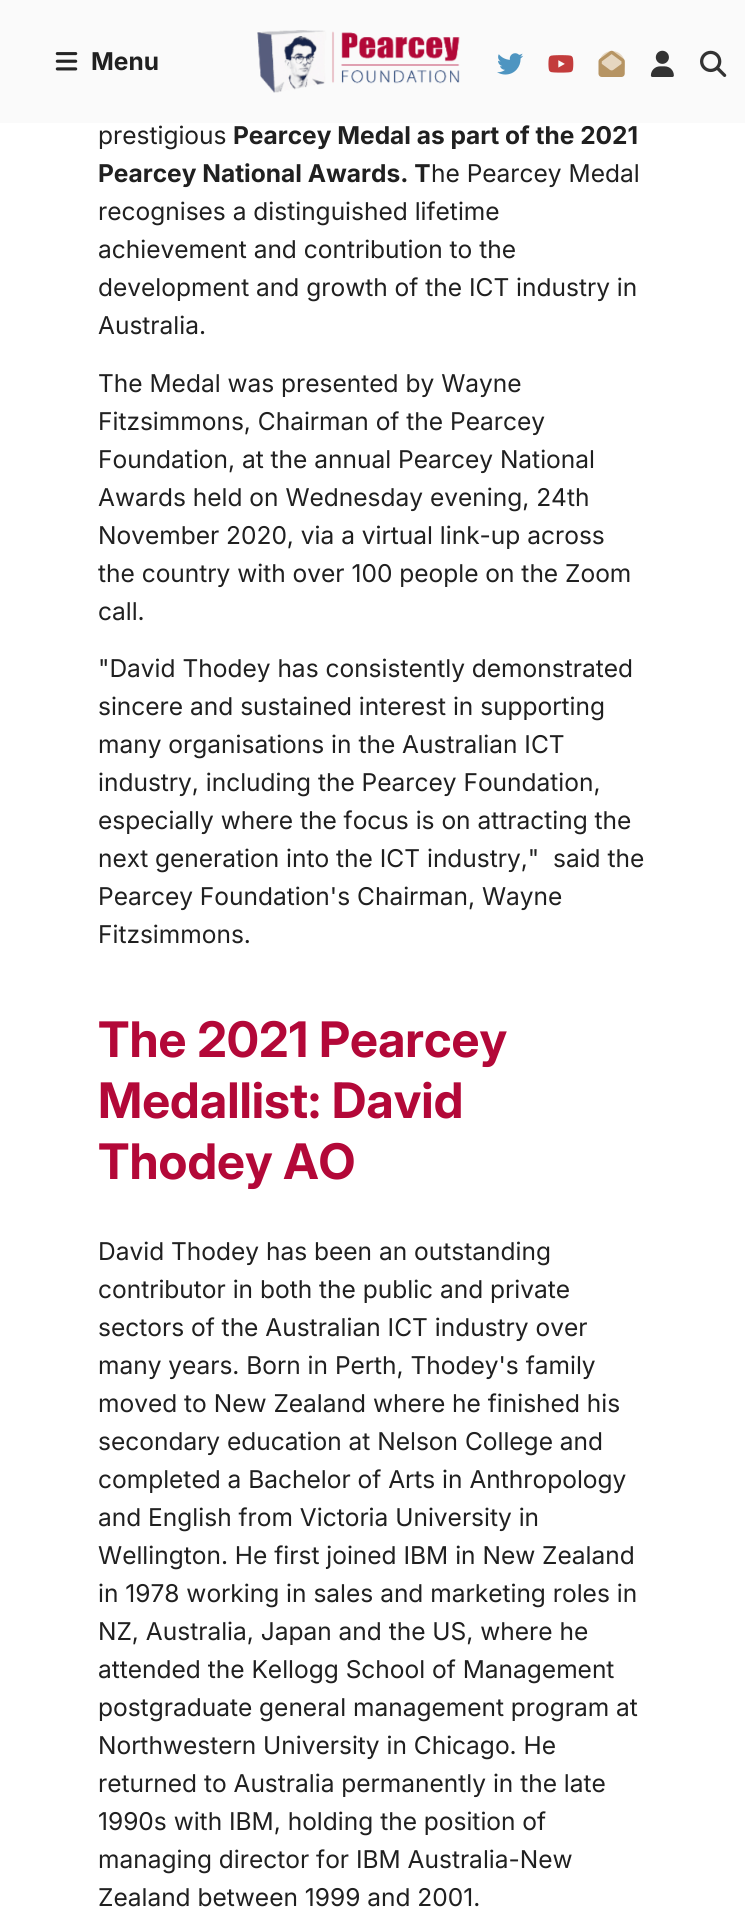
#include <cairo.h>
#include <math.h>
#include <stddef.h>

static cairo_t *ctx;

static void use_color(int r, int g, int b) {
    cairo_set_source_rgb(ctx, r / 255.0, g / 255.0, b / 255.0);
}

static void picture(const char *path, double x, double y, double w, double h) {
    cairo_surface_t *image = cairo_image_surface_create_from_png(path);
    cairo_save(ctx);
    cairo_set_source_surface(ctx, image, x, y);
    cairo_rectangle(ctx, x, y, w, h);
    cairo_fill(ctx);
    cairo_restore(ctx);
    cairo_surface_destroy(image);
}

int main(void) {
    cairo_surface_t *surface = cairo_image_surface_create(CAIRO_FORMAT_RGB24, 745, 1907);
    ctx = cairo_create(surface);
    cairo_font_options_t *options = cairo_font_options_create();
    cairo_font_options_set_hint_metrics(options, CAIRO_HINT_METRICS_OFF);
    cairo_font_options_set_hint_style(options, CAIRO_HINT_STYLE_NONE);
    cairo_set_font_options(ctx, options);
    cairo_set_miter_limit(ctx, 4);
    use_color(255, 255, 255);
    cairo_paint(ctx);
    use_color(250, 250, 250);
    cairo_rectangle(ctx, 0, 0, 745, 123);
    cairo_fill(ctx);
    picture("img1.png", 55, 52, 23, 19);
    cairo_select_font_face(ctx, "Inter", CAIRO_FONT_SLANT_NORMAL, CAIRO_FONT_WEIGHT_BOLD);
    cairo_set_font_size(ctx, 24.5);
    use_color(32, 32, 32);
    cairo_move_to(ctx, 91, 70);
    cairo_show_text(ctx, "Menu");
    picture("img2.png", 257, 30, 203, 63);
    picture("img3.png", 497, 53, 27, 22);
    picture("img4.png", 548, 55, 26, 18);
    use_color(230, 215, 193);
    cairo_arc(ctx, 612, 64, 13, 0, 2 * M_PI);
    cairo_fill(ctx);
    picture("img5.png", 598, 50, 27, 27);
    picture("img6.png", 650, 50, 24, 27);
    picture("img7.png", 700, 50, 27, 27);
    cairo_select_font_face(ctx, "Inter", CAIRO_FONT_SLANT_NORMAL, CAIRO_FONT_WEIGHT_NORMAL);
    use_color(32, 32, 32);
    cairo_move_to(ctx, 98, 144);
    cairo_show_text(ctx, "prestigious");
    cairo_select_font_face(ctx, "Inter", CAIRO_FONT_SLANT_NORMAL, CAIRO_FONT_WEIGHT_BOLD);
    cairo_move_to(ctx, 233, 144);
    cairo_show_text(ctx, "Pearcey Medal as part of the 2021");
    cairo_move_to(ctx, 98, 182);
    cairo_show_text(ctx, "Pearcey National Awards. T");
    cairo_select_font_face(ctx, "Inter", CAIRO_FONT_SLANT_NORMAL, CAIRO_FONT_WEIGHT_NORMAL);
    cairo_move_to(ctx, 431, 182);
    cairo_show_text(ctx, "he Pearcey Medal");
    cairo_move_to(ctx, 98, 220);
    cairo_show_text(ctx, "recognises a distinguished lifetime");
    cairo_move_to(ctx, 98, 258);
    cairo_show_text(ctx, "achievement and contribution to the");
    cairo_move_to(ctx, 98, 296);
    cairo_show_text(ctx, "development and growth of the ICT industry in");
    cairo_move_to(ctx, 98, 334);
    cairo_show_text(ctx, "Australia.");
    cairo_move_to(ctx, 98, 392);
    cairo_show_text(ctx, "The Medal was presented by Wayne");
    cairo_move_to(ctx, 98, 430);
    cairo_show_text(ctx, "Fitzsimmons, Chairman of the Pearcey");
    cairo_move_to(ctx, 98, 468);
    cairo_show_text(ctx, "Foundation, at the annual Pearcey National");
    cairo_move_to(ctx, 98, 506);
    cairo_show_text(ctx, "Awards held on Wednesday evening, 24th");
    cairo_move_to(ctx, 98, 544);
    cairo_show_text(ctx, "November 2020, via a virtual link-up across");
    cairo_move_to(ctx, 98, 582);
    cairo_show_text(ctx, "the country with over 100 people on the Zoom");
    cairo_move_to(ctx, 98, 620);
    cairo_show_text(ctx, "call.");
    cairo_move_to(ctx, 98, 677);
    cairo_show_text(ctx, "\"David Thodey has consistently demonstrated");
    cairo_move_to(ctx, 98, 715);
    cairo_show_text(ctx, "sincere and sustained interest in supporting");
    cairo_move_to(ctx, 98, 753);
    cairo_show_text(ctx, "many organisations in the Australian ICT");
    cairo_move_to(ctx, 98, 791);
    cairo_show_text(ctx, "industry, including the Pearcey Foundation,");
    cairo_move_to(ctx, 98, 829);
    cairo_show_text(ctx, "especially where the focus is on attracting the");
    cairo_move_to(ctx, 98, 867);
    cairo_show_text(ctx, "next generation into the ICT industry,\"");
    cairo_move_to(ctx, 553, 867);
    cairo_show_text(ctx, "said the");
    cairo_move_to(ctx, 98, 905);
    cairo_show_text(ctx, "Pearcey Foundation's Chairman, Wayne");
    cairo_move_to(ctx, 98, 943);
    cairo_show_text(ctx, "Fitzsimmons.");
    cairo_select_font_face(ctx, "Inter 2", CAIRO_FONT_SLANT_NORMAL, CAIRO_FONT_WEIGHT_BOLD);
    cairo_set_font_size(ctx, 49);
    use_color(179, 8, 56);
    cairo_move_to(ctx, 98, 1057);
    cairo_show_text(ctx, "The 2021 Pearcey");
    cairo_move_to(ctx, 98, 1118);
    cairo_show_text(ctx, "Medallist: David");
    cairo_move_to(ctx, 98, 1179);
    cairo_show_text(ctx, "Thodey AO");
    cairo_select_font_face(ctx, "Inter", CAIRO_FONT_SLANT_NORMAL, CAIRO_FONT_WEIGHT_NORMAL);
    cairo_set_font_size(ctx, 24.5);
    use_color(32, 32, 32);
    cairo_move_to(ctx, 98, 1260);
    cairo_show_text(ctx, "David Thodey has been an outstanding");
    cairo_move_to(ctx, 98, 1298);
    cairo_show_text(ctx, "contributor in both the public and private");
    cairo_move_to(ctx, 98, 1336);
    cairo_show_text(ctx, "sectors of the Australian ICT industry over");
    cairo_move_to(ctx, 98, 1374);
    cairo_show_text(ctx, "many years. Born in Perth, Thodey's family");
    cairo_move_to(ctx, 98, 1412);
    cairo_show_text(ctx, "moved to New Zealand where he finished his");
    cairo_move_to(ctx, 98, 1450);
    cairo_show_text(ctx, "secondary education at Nelson College and");
    cairo_move_to(ctx, 98, 1488);
    cairo_show_text(ctx, "completed a Bachelor of Arts in Anthropology");
    cairo_move_to(ctx, 98, 1526);
    cairo_show_text(ctx, "and English from Victoria University in");
    cairo_move_to(ctx, 98, 1564);
    cairo_show_text(ctx, "Wellington. He first joined IBM in New Zealand");
    cairo_move_to(ctx, 98, 1602);
    cairo_show_text(ctx, "in 1978 working in sales and marketing roles in");
    cairo_move_to(ctx, 98, 1640);
    cairo_show_text(ctx, "NZ, Australia, Japan and the US, where he");
    cairo_move_to(ctx, 98, 1678);
    cairo_show_text(ctx, "attended the Kellogg School of Management");
    cairo_move_to(ctx, 98, 1716);
    cairo_show_text(ctx, "postgraduate general management program at");
    cairo_move_to(ctx, 98, 1754);
    cairo_show_text(ctx, "Northwestern University in Chicago. He");
    cairo_move_to(ctx, 98, 1792);
    cairo_show_text(ctx, "returned to Australia permanently in the late");
    cairo_move_to(ctx, 98, 1830);
    cairo_show_text(ctx, "1990s with IBM, holding the position of");
    cairo_move_to(ctx, 98, 1868);
    cairo_show_text(ctx, "managing director for IBM Australia-New");
    cairo_move_to(ctx, 98, 1906);
    cairo_show_text(ctx, "Zealand between 1999 and 2001.");
    cairo_surface_write_to_png(surface, "result.png");
    cairo_font_options_destroy(options);
    cairo_destroy(ctx);
    cairo_surface_destroy(surface);
    return 0;
}
